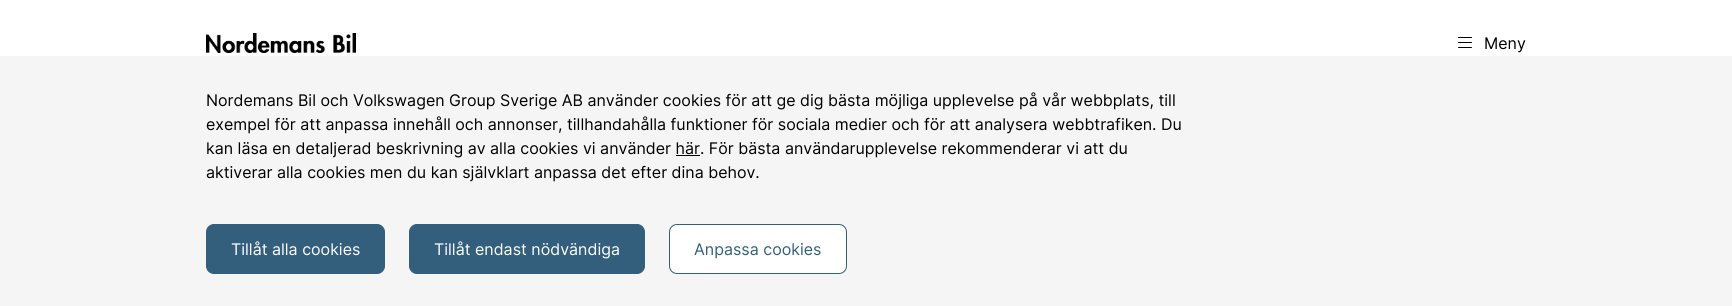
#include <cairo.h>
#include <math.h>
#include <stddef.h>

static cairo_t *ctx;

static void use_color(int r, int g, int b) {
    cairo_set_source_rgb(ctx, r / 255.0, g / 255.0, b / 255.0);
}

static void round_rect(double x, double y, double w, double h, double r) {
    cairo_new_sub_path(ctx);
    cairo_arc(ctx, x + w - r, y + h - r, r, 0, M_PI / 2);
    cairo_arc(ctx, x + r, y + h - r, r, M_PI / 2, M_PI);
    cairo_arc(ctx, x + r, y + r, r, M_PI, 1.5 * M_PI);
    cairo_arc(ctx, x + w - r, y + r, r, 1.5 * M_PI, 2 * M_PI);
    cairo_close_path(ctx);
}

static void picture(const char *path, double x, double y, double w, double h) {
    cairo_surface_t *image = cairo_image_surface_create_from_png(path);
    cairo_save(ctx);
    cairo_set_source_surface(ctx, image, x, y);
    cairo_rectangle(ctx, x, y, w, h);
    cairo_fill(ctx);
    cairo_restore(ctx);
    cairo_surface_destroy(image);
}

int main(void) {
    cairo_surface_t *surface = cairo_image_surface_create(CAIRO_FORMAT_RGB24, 1732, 306);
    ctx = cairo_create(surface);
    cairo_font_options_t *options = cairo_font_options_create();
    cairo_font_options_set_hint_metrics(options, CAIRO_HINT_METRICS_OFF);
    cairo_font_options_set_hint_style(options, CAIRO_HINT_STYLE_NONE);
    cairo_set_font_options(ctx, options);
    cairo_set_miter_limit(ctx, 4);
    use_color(255, 255, 255);
    cairo_paint(ctx);
    picture("img1.png", 206, 33, 150, 20);
    picture("img2.png", 1458, 37, 14, 11);
    cairo_select_font_face(ctx, "Inter", CAIRO_FONT_SLANT_NORMAL, CAIRO_FONT_WEIGHT_NORMAL);
    cairo_set_font_size(ctx, 16);
    use_color(0, 0, 0);
    cairo_move_to(ctx, 1484, 49);
    cairo_show_text(ctx, "Meny");
    use_color(245, 245, 245);
    cairo_rectangle(ctx, 0, 56, 1732, 250);
    cairo_fill(ctx);
    use_color(0, 0, 0);
    cairo_move_to(ctx, 206, 106);
    cairo_show_text(ctx, "Nordemans Bil och Volkswagen Group Sverige AB använder cookies för att ge dig bästa möjliga upplevelse på vår webbplats, till");
    cairo_move_to(ctx, 206, 130);
    cairo_show_text(ctx, "exempel för att anpassa innehåll och annonser, tillhandahålla funktioner för sociala medier och för att analysera webbtrafiken. Du");
    cairo_move_to(ctx, 206, 154);
    cairo_show_text(ctx, "kan läsa en detaljerad beskrivning av alla cookies vi använder här. För bästa användarupplevelse rekommenderar vi att du");
    cairo_rectangle(ctx, 676, 155, 24, 1);
    cairo_fill(ctx);
    cairo_move_to(ctx, 206, 178);
    cairo_show_text(ctx, "aktiverar alla cookies men du kan självklart anpassa det efter dina behov.");
    use_color(51, 95, 125);
    round_rect(206.5, 224.5, 178, 49, 7.5);
    cairo_fill_preserve(ctx);
    cairo_set_line_width(ctx, 1);
    cairo_stroke(ctx);
    use_color(255, 255, 255);
    cairo_move_to(ctx, 231, 255);
    cairo_show_text(ctx, "Tillåt alla cookies");
    use_color(51, 95, 125);
    round_rect(409.5, 224.5, 235, 49, 7.5);
    cairo_fill_preserve(ctx);
    cairo_stroke(ctx);
    use_color(255, 255, 255);
    cairo_move_to(ctx, 434, 255);
    cairo_show_text(ctx, "Tillåt endast nödvändiga");
    round_rect(669.5, 224.5, 177, 49, 7.5);
    cairo_fill_preserve(ctx);
    use_color(51, 95, 125);
    cairo_stroke(ctx);
    cairo_move_to(ctx, 694, 255);
    cairo_show_text(ctx, "Anpassa cookies");
    cairo_surface_write_to_png(surface, "result.png");
    cairo_font_options_destroy(options);
    cairo_destroy(ctx);
    cairo_surface_destroy(surface);
    return 0;
}
